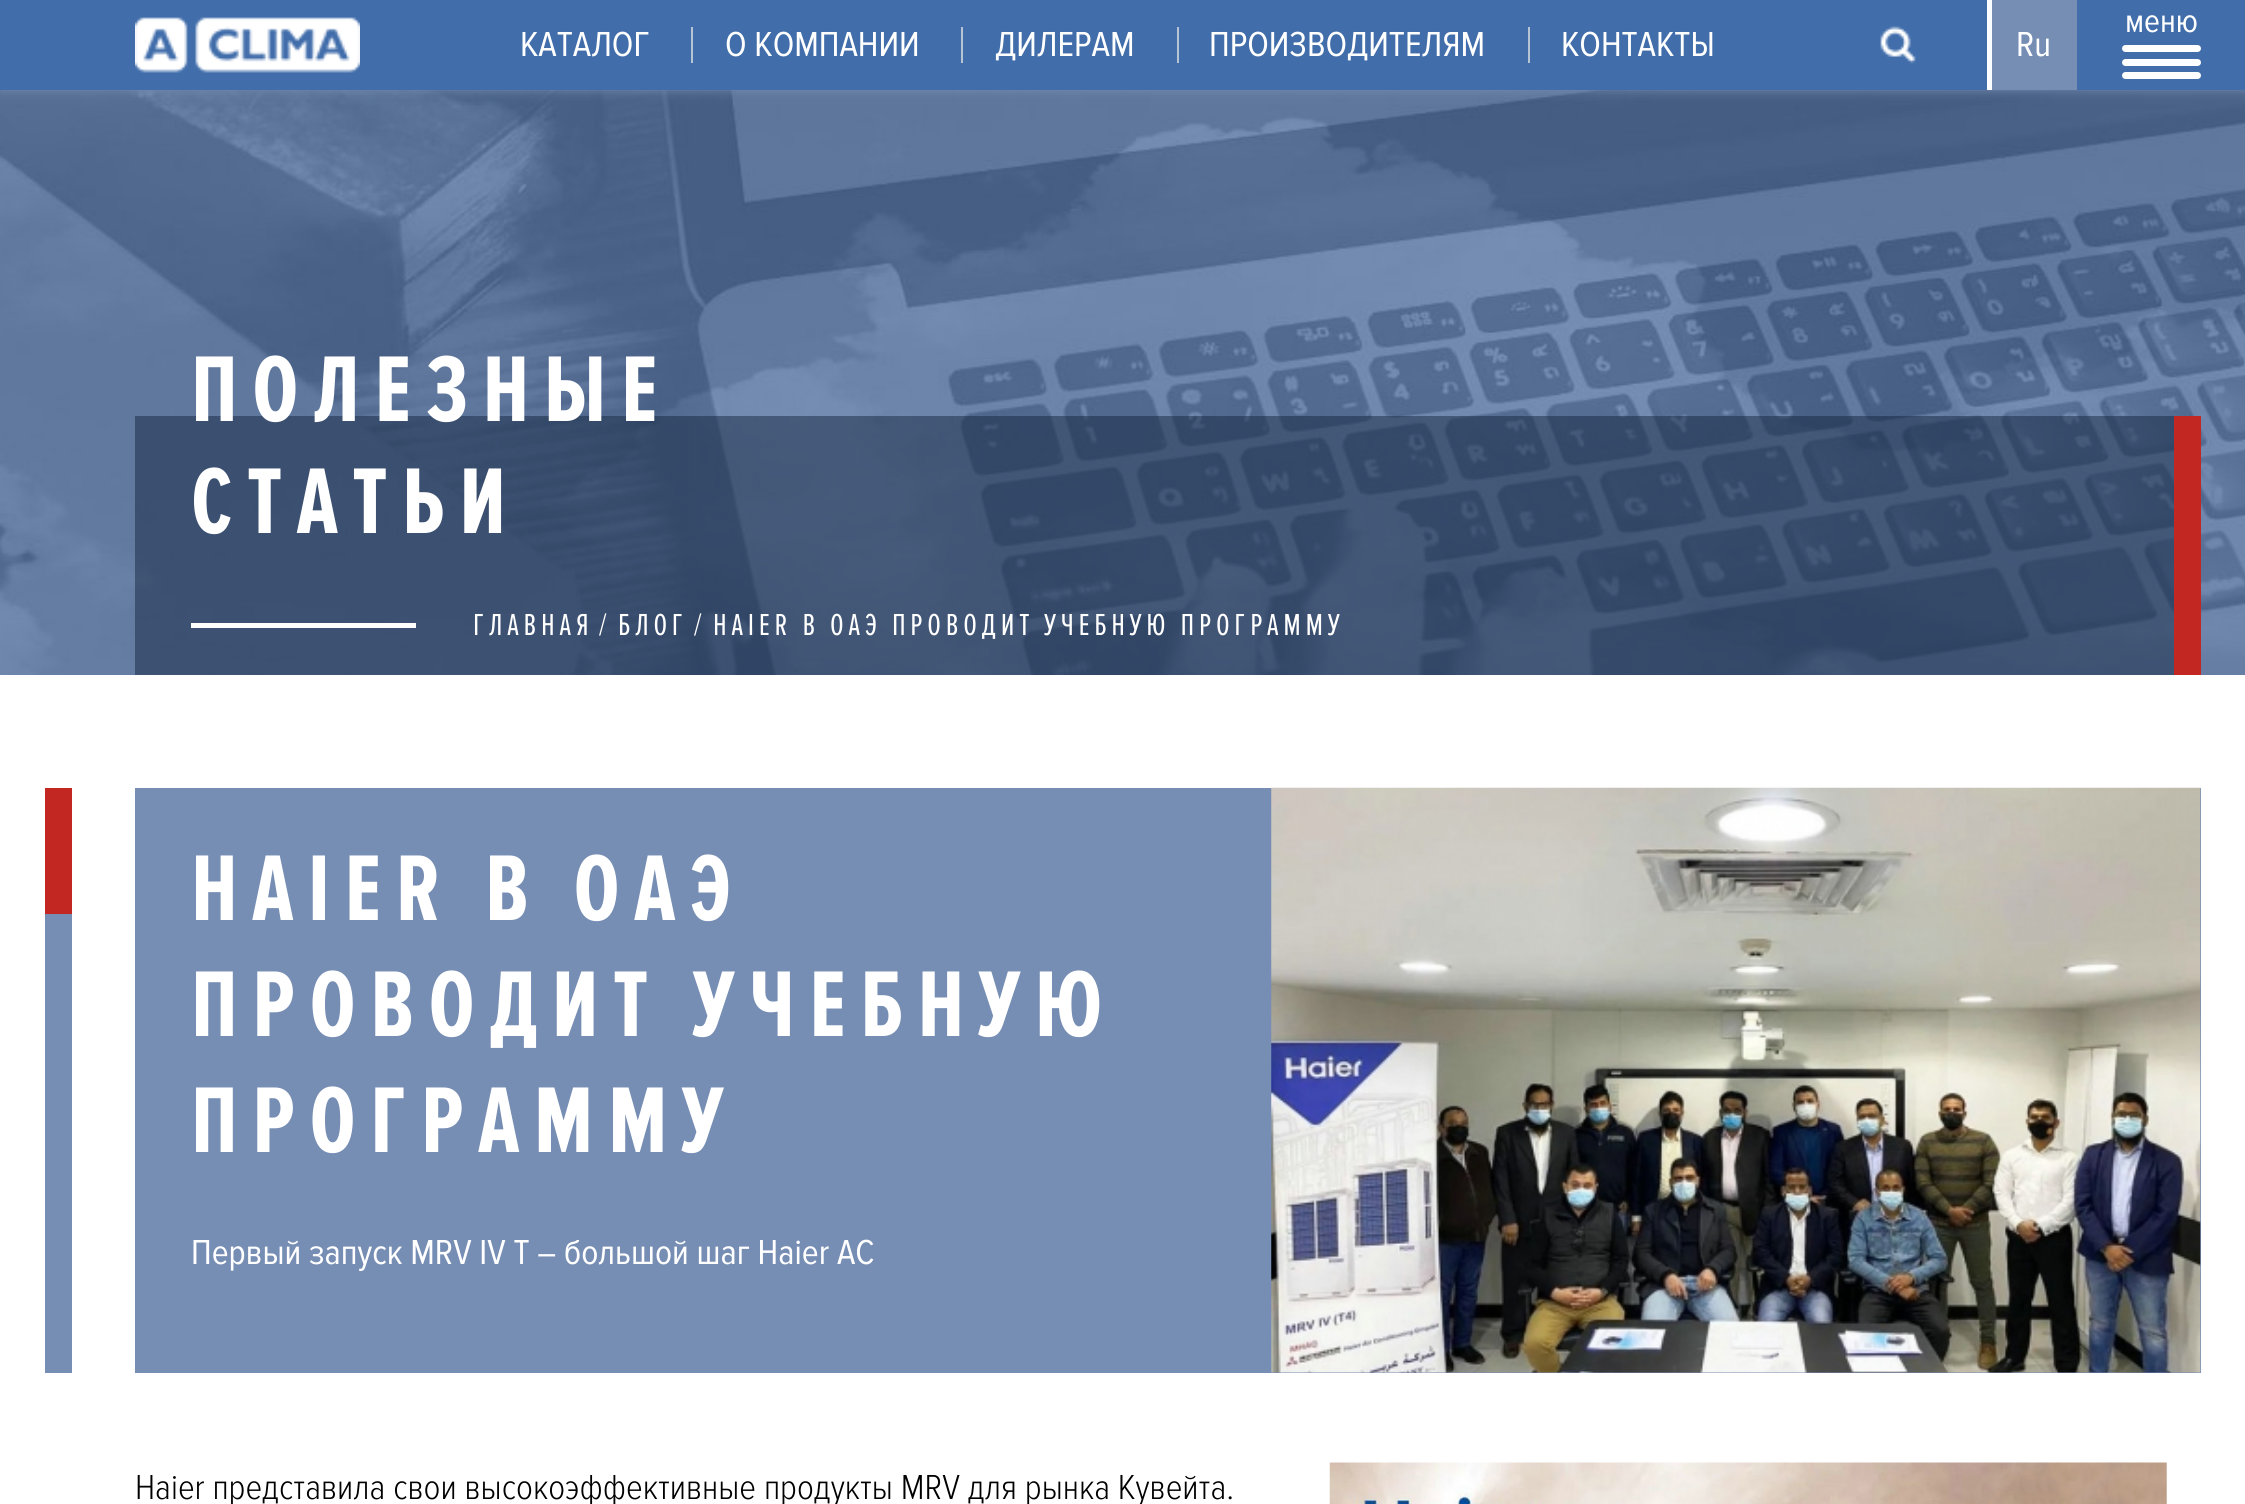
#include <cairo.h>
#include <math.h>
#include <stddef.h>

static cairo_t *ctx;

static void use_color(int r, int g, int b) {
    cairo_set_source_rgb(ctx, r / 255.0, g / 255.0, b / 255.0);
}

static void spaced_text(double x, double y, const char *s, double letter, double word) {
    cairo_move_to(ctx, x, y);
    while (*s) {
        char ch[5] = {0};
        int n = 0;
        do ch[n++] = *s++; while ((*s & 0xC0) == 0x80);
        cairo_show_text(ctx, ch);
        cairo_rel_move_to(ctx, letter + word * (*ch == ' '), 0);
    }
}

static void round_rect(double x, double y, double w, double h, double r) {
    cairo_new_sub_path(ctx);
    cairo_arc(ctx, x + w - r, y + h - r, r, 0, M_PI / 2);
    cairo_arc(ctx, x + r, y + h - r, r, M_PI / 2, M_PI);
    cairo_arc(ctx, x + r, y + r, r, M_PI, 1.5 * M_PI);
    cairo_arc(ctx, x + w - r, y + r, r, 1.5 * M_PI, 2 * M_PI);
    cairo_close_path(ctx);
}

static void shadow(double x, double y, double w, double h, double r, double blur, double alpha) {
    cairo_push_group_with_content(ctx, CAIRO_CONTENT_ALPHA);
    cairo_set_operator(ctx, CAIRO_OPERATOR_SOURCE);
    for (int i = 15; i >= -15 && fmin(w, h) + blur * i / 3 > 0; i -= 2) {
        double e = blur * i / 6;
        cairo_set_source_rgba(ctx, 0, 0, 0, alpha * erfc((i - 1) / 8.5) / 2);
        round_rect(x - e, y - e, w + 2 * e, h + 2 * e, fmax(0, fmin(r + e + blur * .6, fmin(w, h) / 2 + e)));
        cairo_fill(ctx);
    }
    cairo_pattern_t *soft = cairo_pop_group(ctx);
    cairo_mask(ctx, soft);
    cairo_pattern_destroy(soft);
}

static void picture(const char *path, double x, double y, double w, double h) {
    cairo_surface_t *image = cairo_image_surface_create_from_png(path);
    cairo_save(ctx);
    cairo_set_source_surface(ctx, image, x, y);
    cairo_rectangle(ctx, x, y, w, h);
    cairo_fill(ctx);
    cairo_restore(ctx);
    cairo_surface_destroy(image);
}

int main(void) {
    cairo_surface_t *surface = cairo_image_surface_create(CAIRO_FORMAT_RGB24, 2245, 1504);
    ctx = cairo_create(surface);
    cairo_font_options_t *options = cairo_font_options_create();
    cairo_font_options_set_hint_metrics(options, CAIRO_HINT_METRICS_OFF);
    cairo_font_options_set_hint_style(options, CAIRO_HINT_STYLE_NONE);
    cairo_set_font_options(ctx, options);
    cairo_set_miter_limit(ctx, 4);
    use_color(255, 255, 255);
    cairo_paint(ctx);
    picture("img3.png", 0, 90, 2245, 585);
    use_color(118, 141, 180);
    shadow(0, 0, 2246, 90, 0, 5.5, 1);
    use_color(65, 109, 170);
    cairo_rectangle(ctx, 0, 0, 2245, 90);
    cairo_fill(ctx);
    picture("img1.png", 135, 17, 225, 56);
    cairo_select_font_face(ctx, "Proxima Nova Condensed", CAIRO_FONT_SLANT_NORMAL, CAIRO_FONT_WEIGHT_NORMAL);
    cairo_set_font_size(ctx, 36);
    use_color(255, 255, 255);
    cairo_move_to(ctx, 520, 56);
    cairo_show_text(ctx, "КАТАЛОГ");
    use_color(183, 196, 211);
    cairo_rectangle(ctx, 691, 27, 2, 36);
    cairo_fill(ctx);
    use_color(255, 255, 255);
    cairo_move_to(ctx, 725, 56);
    cairo_show_text(ctx, "О КОМПАНИИ");
    use_color(183, 196, 211);
    cairo_rectangle(ctx, 961, 27, 2, 36);
    cairo_fill(ctx);
    use_color(255, 255, 255);
    cairo_move_to(ctx, 995, 56);
    cairo_show_text(ctx, "ДИЛЕРАМ");
    use_color(183, 196, 211);
    cairo_rectangle(ctx, 1177, 27, 2, 36);
    cairo_fill(ctx);
    use_color(255, 255, 255);
    cairo_move_to(ctx, 1209, 56);
    cairo_show_text(ctx, "ПРОИЗВОДИТЕЛЯМ");
    use_color(183, 196, 211);
    cairo_rectangle(ctx, 1528, 27, 2, 36);
    cairo_fill(ctx);
    use_color(255, 255, 255);
    cairo_move_to(ctx, 1561, 56);
    cairo_show_text(ctx, "КОНТАКТЫ");
    cairo_set_font_size(ctx, 34);
    cairo_move_to(ctx, 2125, 32);
    cairo_show_text(ctx, "меню");
    round_rect(2122, 45, 79, 7, 3.5);
    cairo_fill(ctx);
    round_rect(2122, 59, 79, 7, 3.5);
    cairo_fill(ctx);
    round_rect(2122, 72, 79, 7, 3.5);
    cairo_fill(ctx);
    picture("img2.png", 1880, 26, 36, 38);
    use_color(118, 141, 180);
    cairo_rectangle(ctx, 1992, 0, 85, 90);
    cairo_fill(ctx);
    use_color(255, 255, 255);
    cairo_rectangle(ctx, 1987, 0, 5, 90);
    cairo_fill(ctx);
    cairo_set_font_size(ctx, 36);
    cairo_move_to(ctx, 2016, 56);
    cairo_show_text(ctx, "Ru");
    cairo_set_source_rgba(ctx, 0.082, 0.145, 0.251, 0.49);
    cairo_rectangle(ctx, 135, 416, 2039, 259);
    cairo_fill(ctx);
    use_color(194, 40, 33);
    cairo_rectangle(ctx, 2174, 416, 27, 259);
    cairo_fill(ctx);
    cairo_select_font_face(ctx, "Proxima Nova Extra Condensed", CAIRO_FONT_SLANT_NORMAL, CAIRO_FONT_WEIGHT_BOLD);
    cairo_set_font_size(ctx, 96.75);
    use_color(255, 255, 255);
    spaced_text(191, 421, "ПОЛЕЗНЫЕ", 14.5, 0);
    spaced_text(191, 533, "СТАТЬИ", 14.5, 0);
    cairo_rectangle(ctx, 191, 623, 225, 5);
    cairo_fill(ctx);
    cairo_select_font_face(ctx, "Proxima Nova Extra Condensed", CAIRO_FONT_SLANT_NORMAL, CAIRO_FONT_WEIGHT_NORMAL);
    cairo_set_font_size(ctx, 31.5);
    spaced_text(473, 635, "ГЛАВНАЯ", 4.75, 0);
    cairo_select_font_face(ctx, "Proxima Nova Condensed Light", CAIRO_FONT_SLANT_NORMAL, CAIRO_FONT_WEIGHT_NORMAL);
    cairo_move_to(ctx, 599, 635);
    cairo_show_text(ctx, "/");
    cairo_select_font_face(ctx, "Proxima Nova Extra Condensed", CAIRO_FONT_SLANT_NORMAL, CAIRO_FONT_WEIGHT_NORMAL);
    spaced_text(618, 635, "БЛОГ", 4.75, 0);
    cairo_select_font_face(ctx, "Proxima Nova Condensed Light", CAIRO_FONT_SLANT_NORMAL, CAIRO_FONT_WEIGHT_NORMAL);
    cairo_move_to(ctx, 694, 635);
    cairo_show_text(ctx, "/");
    cairo_select_font_face(ctx, "Proxima Nova Extra Condensed", CAIRO_FONT_SLANT_NORMAL, CAIRO_FONT_WEIGHT_NORMAL);
    spaced_text(713, 635, "HAIER В ОАЭ ПРОВОДИТ УЧЕБНУЮ ПРОГРАММУ", 4.75, 0);
    use_color(118, 141, 180);
    cairo_rectangle(ctx, 135, 788, 2066, 585);
    cairo_fill(ctx);
    use_color(194, 40, 33);
    cairo_rectangle(ctx, 45, 788, 27, 126);
    cairo_fill(ctx);
    cairo_select_font_face(ctx, "Proxima Nova Extra Condensed", CAIRO_FONT_SLANT_NORMAL, CAIRO_FONT_WEIGHT_BOLD);
    cairo_set_font_size(ctx, 96.75);
    use_color(255, 255, 255);
    spaced_text(191, 920, "HAIER В ОАЭ", 14.5, 0);
    spaced_text(191, 1036, "ПРОВОДИТ УЧЕБНУЮ", 14.5, 0);
    spaced_text(191, 1152, "ПРОГРАММУ", 14.5, 0);
    picture("img4.png", 1271, 787, 930, 586);
    use_color(118, 141, 180);
    cairo_rectangle(ctx, 45, 914, 27, 459);
    cairo_fill(ctx);
    cairo_select_font_face(ctx, "Proxima Nova Condensed", CAIRO_FONT_SLANT_NORMAL, CAIRO_FONT_WEIGHT_NORMAL);
    cairo_set_font_size(ctx, 36);
    use_color(255, 255, 255);
    cairo_move_to(ctx, 191, 1264);
    cairo_show_text(ctx, "Первый запуск MRV IV T – большой шаг Haier AC");
    cairo_select_font_face(ctx, "Proxima Nova Condensed Light", CAIRO_FONT_SLANT_NORMAL, CAIRO_FONT_WEIGHT_NORMAL);
    use_color(0, 0, 0);
    cairo_move_to(ctx, 135, 1499);
    cairo_show_text(ctx, "Haier представила свои высокоэффективные продукты MRV для рынка Кувейта.");
    picture("img5.png", 1329, 1462, 838, 42);
    cairo_surface_write_to_png(surface, "result.png");
    cairo_font_options_destroy(options);
    cairo_destroy(ctx);
    cairo_surface_destroy(surface);
    return 0;
}
